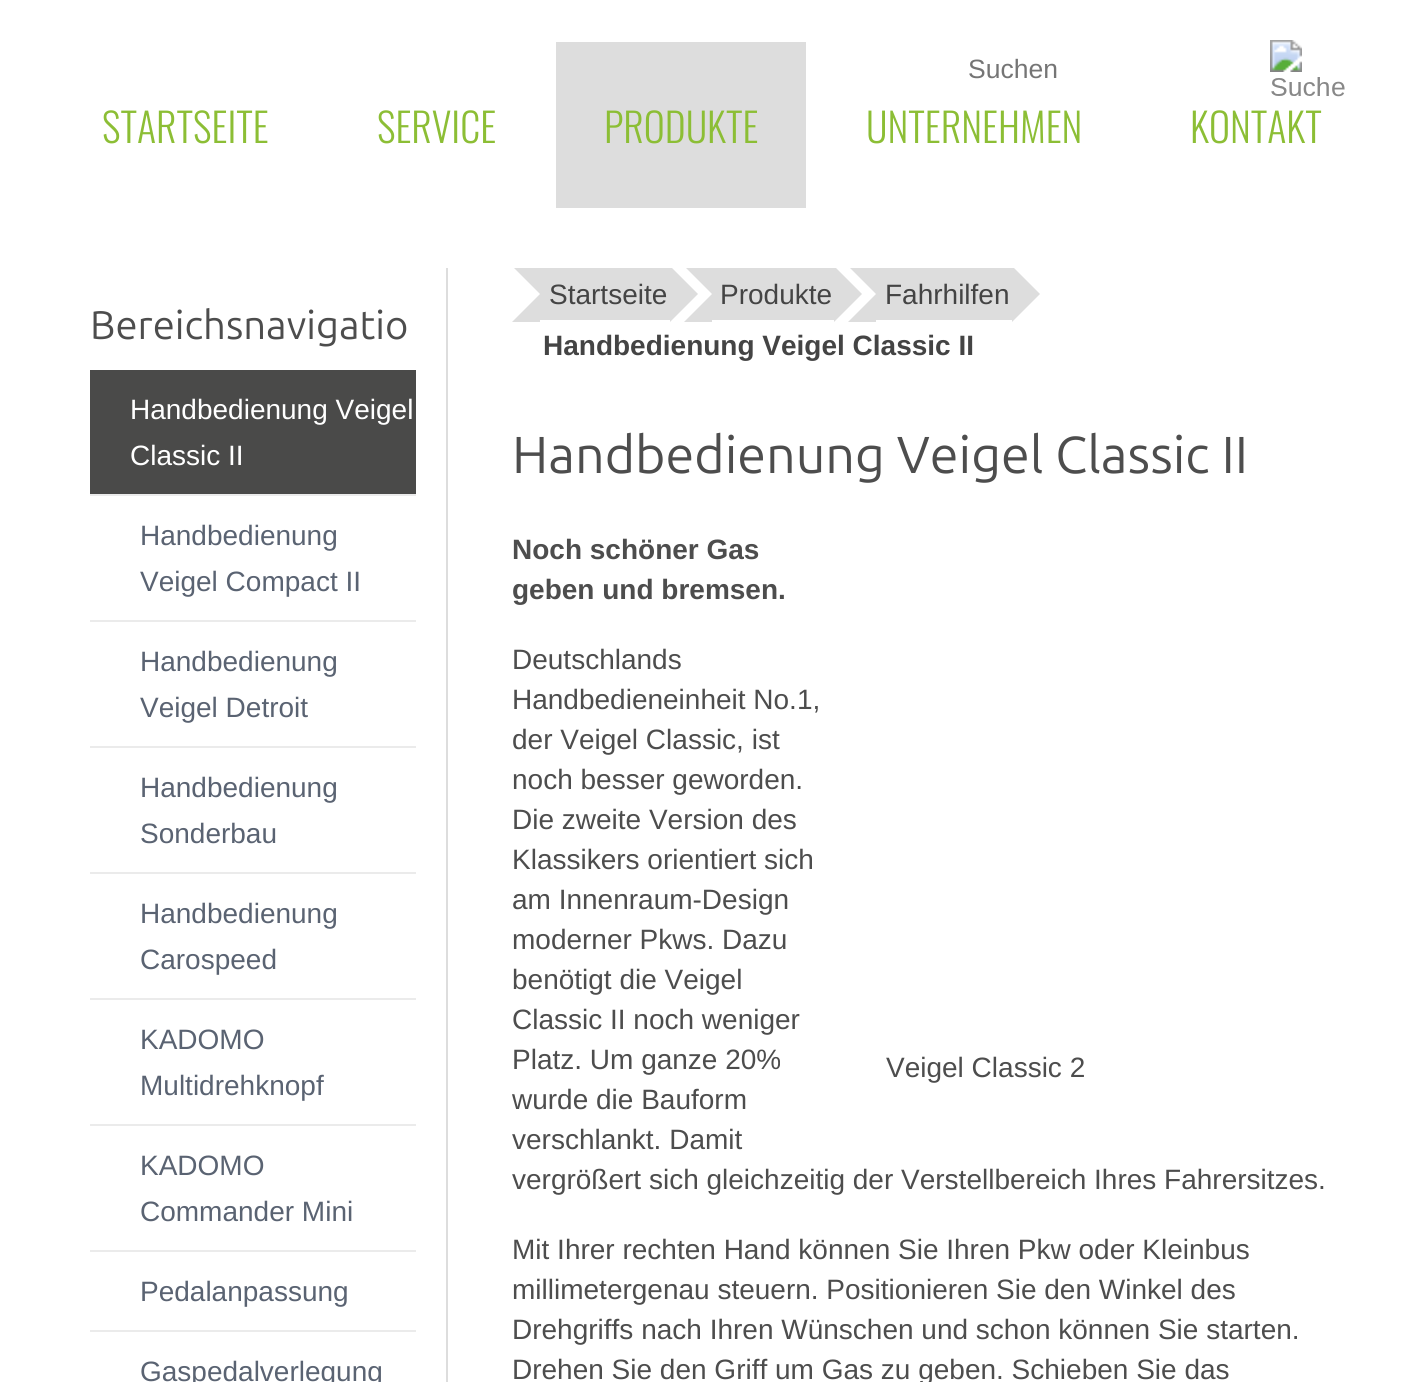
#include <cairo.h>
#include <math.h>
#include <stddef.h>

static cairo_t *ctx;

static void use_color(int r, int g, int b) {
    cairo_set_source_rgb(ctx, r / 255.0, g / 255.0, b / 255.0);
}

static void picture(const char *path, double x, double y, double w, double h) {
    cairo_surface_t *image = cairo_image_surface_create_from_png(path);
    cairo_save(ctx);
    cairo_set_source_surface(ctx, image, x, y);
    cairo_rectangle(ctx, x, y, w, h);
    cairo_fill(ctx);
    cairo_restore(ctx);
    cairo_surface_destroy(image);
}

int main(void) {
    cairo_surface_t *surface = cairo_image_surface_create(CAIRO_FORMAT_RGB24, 1412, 1382);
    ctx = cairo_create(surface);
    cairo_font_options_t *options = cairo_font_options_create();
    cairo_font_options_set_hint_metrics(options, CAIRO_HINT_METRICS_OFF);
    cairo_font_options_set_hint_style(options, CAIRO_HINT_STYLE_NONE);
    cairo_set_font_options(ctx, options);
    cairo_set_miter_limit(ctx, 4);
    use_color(255, 255, 255);
    cairo_paint(ctx);
    cairo_select_font_face(ctx, "Liberation Sans", CAIRO_FONT_SLANT_NORMAL, CAIRO_FONT_WEIGHT_NORMAL);
    cairo_set_font_size(ctx, 26.5);
    use_color(117, 117, 117);
    cairo_move_to(ctx, 968, 78);
    cairo_show_text(ctx, "Suchen");
    picture("img1.png", 1270, 40, 59, 56);
    use_color(136, 136, 136);
    cairo_move_to(ctx, 1331, 96);
    cairo_show_text(ctx, "e");
    cairo_select_font_face(ctx, "Oswald Light", CAIRO_FONT_SLANT_NORMAL, CAIRO_FONT_WEIGHT_NORMAL);
    cairo_set_font_size(ctx, 40);
    use_color(140, 190, 53);
    cairo_move_to(ctx, 102, 143);
    cairo_show_text(ctx, "STARTSEITE");
    cairo_move_to(ctx, 377, 143);
    cairo_show_text(ctx, "SERVICE");
    use_color(221, 221, 221);
    cairo_rectangle(ctx, 556, 42, 250, 166);
    cairo_fill(ctx);
    use_color(140, 190, 53);
    cairo_move_to(ctx, 604, 143);
    cairo_show_text(ctx, "PRODUKTE");
    cairo_move_to(ctx, 866, 143);
    cairo_show_text(ctx, "UNTERNEHMEN");
    cairo_move_to(ctx, 1190, 143);
    cairo_show_text(ctx, "KONTAKT");
    use_color(221, 221, 221);
    cairo_rectangle(ctx, 446, 268, 2, 1114);
    cairo_fill(ctx);
    cairo_select_font_face(ctx, "Ubuntu", CAIRO_FONT_SLANT_NORMAL, CAIRO_FONT_WEIGHT_NORMAL);
    use_color(77, 77, 77);
    cairo_move_to(ctx, 90, 339);
    cairo_show_text(ctx, "Bereichsnavigatio");
    use_color(74, 74, 73);
    cairo_rectangle(ctx, 90, 370, 326, 124);
    cairo_fill(ctx);
    use_color(235, 235, 235);
    cairo_rectangle(ctx, 90, 494, 326, 2);
    cairo_fill(ctx);
    cairo_select_font_face(ctx, "Liberation Sans", CAIRO_FONT_SLANT_NORMAL, CAIRO_FONT_WEIGHT_NORMAL);
    cairo_set_font_size(ctx, 28);
    use_color(255, 255, 255);
    cairo_move_to(ctx, 130, 419);
    cairo_show_text(ctx, "Handbedienung Veigel");
    cairo_move_to(ctx, 130, 465);
    cairo_show_text(ctx, "Classic II");
    use_color(235, 235, 235);
    cairo_rectangle(ctx, 90, 620, 326, 2);
    cairo_fill(ctx);
    use_color(90, 99, 114);
    cairo_move_to(ctx, 140, 545);
    cairo_show_text(ctx, "Handbedienung");
    cairo_move_to(ctx, 140, 591);
    cairo_show_text(ctx, "Veigel Compact II");
    use_color(235, 235, 235);
    cairo_rectangle(ctx, 90, 746, 326, 2);
    cairo_fill(ctx);
    use_color(90, 99, 114);
    cairo_move_to(ctx, 140, 671);
    cairo_show_text(ctx, "Handbedienung");
    cairo_move_to(ctx, 140, 717);
    cairo_show_text(ctx, "Veigel Detroit");
    use_color(235, 235, 235);
    cairo_rectangle(ctx, 90, 872, 326, 2);
    cairo_fill(ctx);
    use_color(90, 99, 114);
    cairo_move_to(ctx, 140, 797);
    cairo_show_text(ctx, "Handbedienung");
    cairo_move_to(ctx, 140, 843);
    cairo_show_text(ctx, "Sonderbau");
    use_color(235, 235, 235);
    cairo_rectangle(ctx, 90, 998, 326, 2);
    cairo_fill(ctx);
    use_color(90, 99, 114);
    cairo_move_to(ctx, 140, 923);
    cairo_show_text(ctx, "Handbedienung");
    cairo_move_to(ctx, 140, 969);
    cairo_show_text(ctx, "Carospeed");
    use_color(235, 235, 235);
    cairo_rectangle(ctx, 90, 1124, 326, 2);
    cairo_fill(ctx);
    use_color(90, 99, 114);
    cairo_move_to(ctx, 140, 1049);
    cairo_show_text(ctx, "KADOMO");
    cairo_move_to(ctx, 140, 1095);
    cairo_show_text(ctx, "Multidrehknopf");
    use_color(235, 235, 235);
    cairo_rectangle(ctx, 90, 1250, 326, 2);
    cairo_fill(ctx);
    use_color(90, 99, 114);
    cairo_move_to(ctx, 140, 1175);
    cairo_show_text(ctx, "KADOMO");
    cairo_move_to(ctx, 140, 1221);
    cairo_show_text(ctx, "Commander Mini");
    use_color(235, 235, 235);
    cairo_rectangle(ctx, 90, 1330, 326, 2);
    cairo_fill(ctx);
    use_color(90, 99, 114);
    cairo_move_to(ctx, 140, 1301);
    cairo_show_text(ctx, "Pedalanpassung");
    cairo_move_to(ctx, 140, 1381);
    cairo_show_text(ctx, "Gaspedalverlegung");
    use_color(221, 221, 221);
    cairo_rectangle(ctx, 540, 268, 130, 52);
    cairo_fill(ctx);
    cairo_save(ctx);
    cairo_rectangle(ctx, 512, 268, 840, 102);
    cairo_clip(ctx);
    cairo_new_path(ctx);
    cairo_move_to(ctx, 512, 266);
    cairo_line_to(ctx, 540, 266);
    cairo_line_to(ctx, 540, 294);
    cairo_close_path(ctx);
    cairo_fill(ctx);
    cairo_restore(ctx);
    cairo_new_path(ctx);
    cairo_move_to(ctx, 540, 322);
    cairo_line_to(ctx, 512, 322);
    cairo_line_to(ctx, 540, 294);
    cairo_close_path(ctx);
    cairo_fill(ctx);
    use_color(68, 68, 68);
    cairo_move_to(ctx, 549, 304);
    cairo_show_text(ctx, "Startseite");
    cairo_save(ctx);
    cairo_rectangle(ctx, 512, 268, 840, 102);
    cairo_clip(ctx);
    use_color(221, 221, 221);
    cairo_new_path(ctx);
    cairo_move_to(ctx, 670, 322);
    cairo_line_to(ctx, 670, 266);
    cairo_line_to(ctx, 698, 294);
    cairo_close_path(ctx);
    cairo_fill(ctx);
    cairo_restore(ctx);
    use_color(221, 221, 221);
    cairo_rectangle(ctx, 712, 268, 122, 52);
    cairo_fill(ctx);
    cairo_save(ctx);
    cairo_rectangle(ctx, 512, 268, 840, 102);
    cairo_clip(ctx);
    cairo_new_path(ctx);
    cairo_move_to(ctx, 684, 266);
    cairo_line_to(ctx, 712, 266);
    cairo_line_to(ctx, 712, 294);
    cairo_close_path(ctx);
    cairo_fill(ctx);
    cairo_restore(ctx);
    cairo_new_path(ctx);
    cairo_move_to(ctx, 712, 322);
    cairo_line_to(ctx, 684, 322);
    cairo_line_to(ctx, 712, 294);
    cairo_close_path(ctx);
    cairo_fill(ctx);
    use_color(68, 68, 68);
    cairo_move_to(ctx, 720, 304);
    cairo_show_text(ctx, "Produkte");
    cairo_save(ctx);
    cairo_rectangle(ctx, 512, 268, 840, 102);
    cairo_clip(ctx);
    use_color(221, 221, 221);
    cairo_new_path(ctx);
    cairo_move_to(ctx, 834, 322);
    cairo_line_to(ctx, 834, 266);
    cairo_line_to(ctx, 862, 294);
    cairo_close_path(ctx);
    cairo_fill(ctx);
    cairo_restore(ctx);
    use_color(221, 221, 221);
    cairo_rectangle(ctx, 876, 268, 136, 52);
    cairo_fill(ctx);
    cairo_save(ctx);
    cairo_rectangle(ctx, 512, 268, 840, 102);
    cairo_clip(ctx);
    cairo_new_path(ctx);
    cairo_move_to(ctx, 848, 266);
    cairo_line_to(ctx, 876, 266);
    cairo_line_to(ctx, 876, 294);
    cairo_close_path(ctx);
    cairo_fill(ctx);
    cairo_restore(ctx);
    cairo_new_path(ctx);
    cairo_move_to(ctx, 876, 322);
    cairo_line_to(ctx, 848, 322);
    cairo_line_to(ctx, 876, 294);
    cairo_close_path(ctx);
    cairo_fill(ctx);
    use_color(68, 68, 68);
    cairo_move_to(ctx, 885, 304);
    cairo_show_text(ctx, "Fahrhilfen");
    cairo_save(ctx);
    cairo_rectangle(ctx, 512, 268, 840, 102);
    cairo_clip(ctx);
    use_color(221, 221, 221);
    cairo_new_path(ctx);
    cairo_move_to(ctx, 1012, 322);
    cairo_line_to(ctx, 1012, 266);
    cairo_line_to(ctx, 1040, 294);
    cairo_close_path(ctx);
    cairo_fill(ctx);
    cairo_restore(ctx);
    cairo_select_font_face(ctx, "Liberation Sans", CAIRO_FONT_SLANT_NORMAL, CAIRO_FONT_WEIGHT_BOLD);
    cairo_move_to(ctx, 543, 355);
    cairo_show_text(ctx, "Handbedienung Veigel Classic II");
    cairo_select_font_face(ctx, "Ubuntu", CAIRO_FONT_SLANT_NORMAL, CAIRO_FONT_WEIGHT_NORMAL);
    cairo_set_font_size(ctx, 52);
    use_color(77, 77, 77);
    cairo_move_to(ctx, 512, 473);
    cairo_show_text(ctx, "Handbedienung Veigel Classic II");
    cairo_select_font_face(ctx, "Liberation Sans", CAIRO_FONT_SLANT_NORMAL, CAIRO_FONT_WEIGHT_BOLD);
    cairo_set_font_size(ctx, 28);
    cairo_move_to(ctx, 512, 559);
    cairo_show_text(ctx, "Noch schöner Gas");
    cairo_move_to(ctx, 512, 599);
    cairo_show_text(ctx, "geben und bremsen.");
    cairo_select_font_face(ctx, "Liberation Sans", CAIRO_FONT_SLANT_NORMAL, CAIRO_FONT_WEIGHT_NORMAL);
    cairo_move_to(ctx, 512, 669);
    cairo_show_text(ctx, "Deutschlands");
    cairo_move_to(ctx, 512, 709);
    cairo_show_text(ctx, "Handbedieneinheit No.1,");
    cairo_move_to(ctx, 512, 749);
    cairo_show_text(ctx, "der Veigel Classic, ist");
    cairo_move_to(ctx, 512, 789);
    cairo_show_text(ctx, "noch besser geworden.");
    cairo_move_to(ctx, 512, 829);
    cairo_show_text(ctx, "Die zweite Version des");
    cairo_move_to(ctx, 512, 869);
    cairo_show_text(ctx, "Klassikers orientiert sich");
    cairo_move_to(ctx, 512, 909);
    cairo_show_text(ctx, "am Innenraum-Design");
    cairo_move_to(ctx, 512, 949);
    cairo_show_text(ctx, "moderner Pkws. Dazu");
    cairo_move_to(ctx, 512, 989);
    cairo_show_text(ctx, "benötigt die Veigel");
    cairo_move_to(ctx, 512, 1029);
    cairo_show_text(ctx, "Classic II noch weniger");
    cairo_move_to(ctx, 512, 1069);
    cairo_show_text(ctx, "Platz. Um ganze 20%");
    cairo_move_to(ctx, 512, 1109);
    cairo_show_text(ctx, "wurde die Bauform");
    cairo_move_to(ctx, 512, 1149);
    cairo_show_text(ctx, "verschlankt. Damit");
    cairo_move_to(ctx, 512, 1189);
    cairo_show_text(ctx, "vergrößert sich gleichzeitig der Verstellbereich Ihres Fahrersitzes.");
    cairo_move_to(ctx, 886, 1077);
    cairo_show_text(ctx, "Veigel Classic 2");
    cairo_move_to(ctx, 512, 1259);
    cairo_show_text(ctx, "Mit Ihrer rechten Hand können Sie Ihren Pkw oder Kleinbus");
    cairo_move_to(ctx, 512, 1299);
    cairo_show_text(ctx, "millimetergenau steuern. Positionieren Sie den Winkel des");
    cairo_move_to(ctx, 512, 1339);
    cairo_show_text(ctx, "Drehgriffs nach Ihren Wünschen und schon können Sie starten.");
    cairo_move_to(ctx, 512, 1379);
    cairo_show_text(ctx, "Drehen Sie den Griff um Gas zu geben. Schieben Sie das");
    cairo_surface_write_to_png(surface, "result.png");
    cairo_font_options_destroy(options);
    cairo_destroy(ctx);
    cairo_surface_destroy(surface);
    return 0;
}
